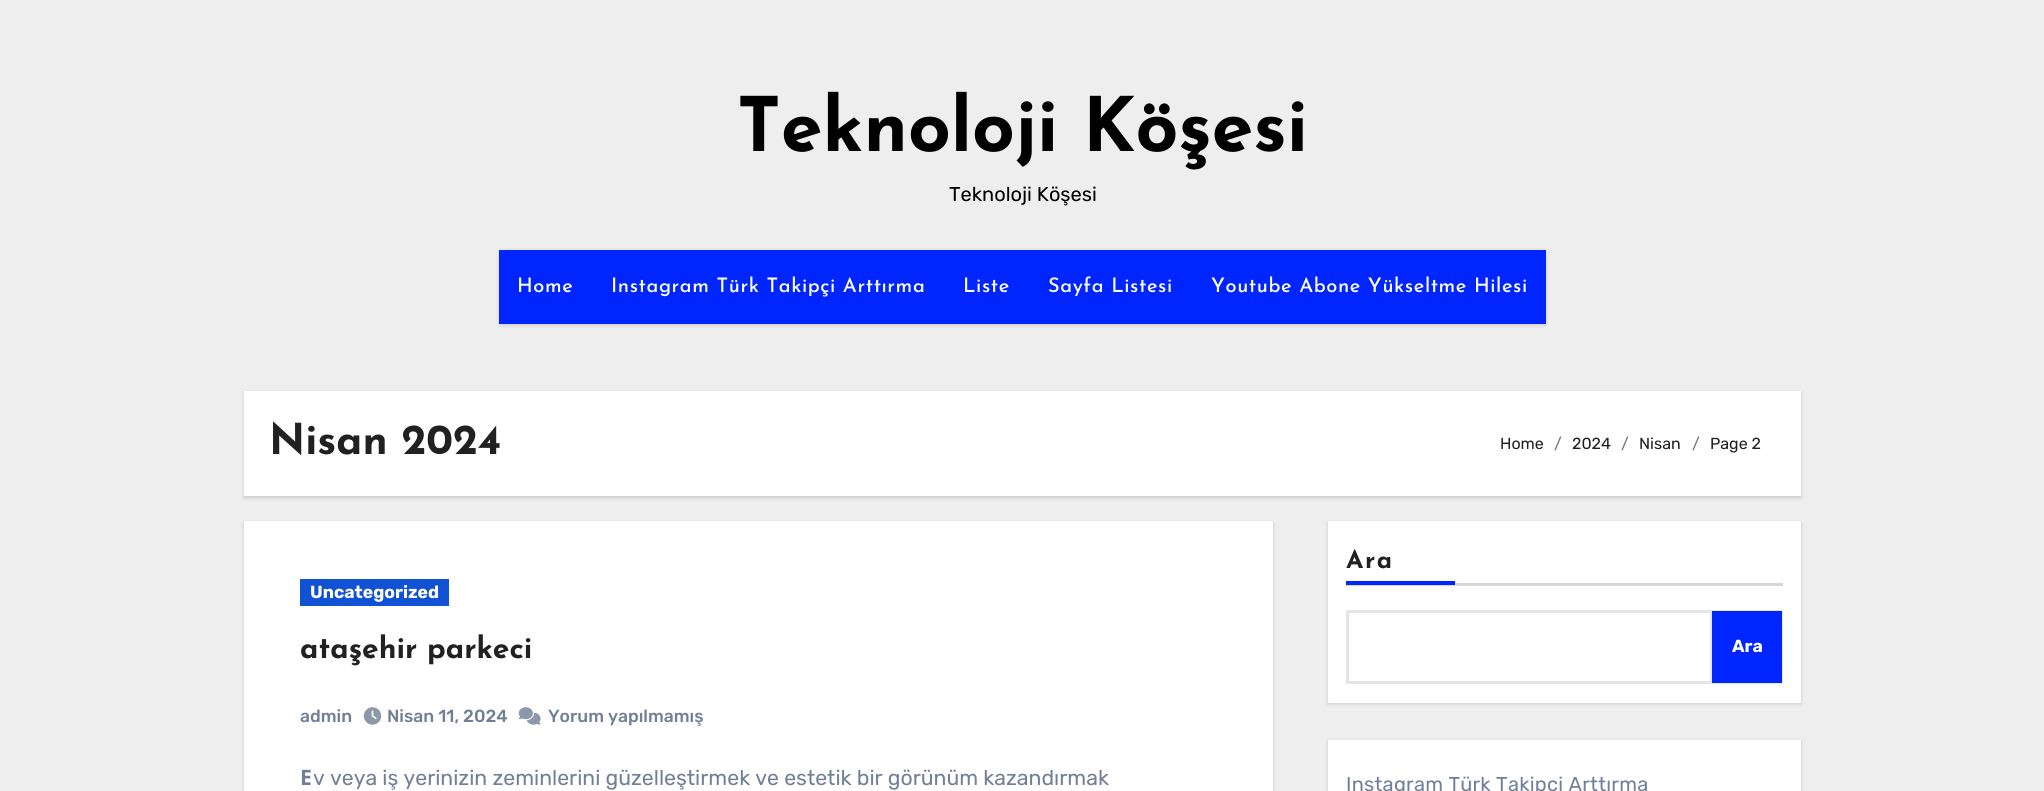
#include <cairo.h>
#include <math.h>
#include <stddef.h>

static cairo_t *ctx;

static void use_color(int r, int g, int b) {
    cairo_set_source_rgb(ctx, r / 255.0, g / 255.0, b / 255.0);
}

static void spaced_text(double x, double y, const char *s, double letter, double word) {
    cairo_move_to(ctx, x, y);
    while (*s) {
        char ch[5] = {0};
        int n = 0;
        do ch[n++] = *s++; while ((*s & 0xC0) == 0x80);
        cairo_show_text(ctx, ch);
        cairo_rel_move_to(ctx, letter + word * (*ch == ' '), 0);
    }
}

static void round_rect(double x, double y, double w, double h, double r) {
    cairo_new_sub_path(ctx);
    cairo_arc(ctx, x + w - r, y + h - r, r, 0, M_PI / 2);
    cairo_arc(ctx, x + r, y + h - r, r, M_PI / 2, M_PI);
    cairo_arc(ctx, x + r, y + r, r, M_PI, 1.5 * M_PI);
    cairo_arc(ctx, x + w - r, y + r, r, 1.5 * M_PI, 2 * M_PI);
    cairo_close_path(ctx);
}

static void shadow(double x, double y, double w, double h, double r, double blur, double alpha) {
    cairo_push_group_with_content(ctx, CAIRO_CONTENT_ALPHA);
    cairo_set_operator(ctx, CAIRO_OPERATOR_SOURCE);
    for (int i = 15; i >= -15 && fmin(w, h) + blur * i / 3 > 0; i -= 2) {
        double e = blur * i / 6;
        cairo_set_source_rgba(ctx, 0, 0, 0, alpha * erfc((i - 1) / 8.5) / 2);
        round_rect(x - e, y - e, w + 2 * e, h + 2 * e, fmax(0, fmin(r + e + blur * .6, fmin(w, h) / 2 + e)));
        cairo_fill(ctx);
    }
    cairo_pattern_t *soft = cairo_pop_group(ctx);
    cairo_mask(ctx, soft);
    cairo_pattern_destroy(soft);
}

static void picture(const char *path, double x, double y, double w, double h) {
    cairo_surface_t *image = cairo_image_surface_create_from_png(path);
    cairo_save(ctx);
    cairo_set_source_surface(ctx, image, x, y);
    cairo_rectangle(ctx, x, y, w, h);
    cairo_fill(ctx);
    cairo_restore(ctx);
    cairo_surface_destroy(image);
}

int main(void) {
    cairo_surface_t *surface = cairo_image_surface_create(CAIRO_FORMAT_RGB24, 2044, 791);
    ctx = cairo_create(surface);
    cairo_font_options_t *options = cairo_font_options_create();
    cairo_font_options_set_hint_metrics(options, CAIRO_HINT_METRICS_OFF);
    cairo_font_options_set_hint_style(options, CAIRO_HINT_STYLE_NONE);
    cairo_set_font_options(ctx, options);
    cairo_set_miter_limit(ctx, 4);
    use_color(238, 238, 238);
    cairo_paint(ctx);
    cairo_select_font_face(ctx, "Josefin Sans", CAIRO_FONT_SLANT_NORMAL, CAIRO_FONT_WEIGHT_BOLD);
    cairo_set_font_size(ctx, 75);
    use_color(0, 0, 0);
    cairo_move_to(ctx, 737, 151);
    cairo_show_text(ctx, "Teknoloji Köşesi");
    cairo_select_font_face(ctx, "Rubik Light", CAIRO_FONT_SLANT_NORMAL, CAIRO_FONT_WEIGHT_NORMAL);
    cairo_set_font_size(ctx, 20);
    cairo_move_to(ctx, 949, 201);
    cairo_show_text(ctx, "Teknoloji Köşesi");
    use_color(0, 0, 0);
    shadow(499, 251, 1047, 74, 0, 2, 0.15);
    use_color(0, 37, 255);
    cairo_rectangle(ctx, 499, 250, 1047, 74);
    cairo_fill(ctx);
    cairo_select_font_face(ctx, "Josefin Sans Medium", CAIRO_FONT_SLANT_NORMAL, CAIRO_FONT_WEIGHT_NORMAL);
    use_color(255, 255, 255);
    spaced_text(517, 292, "Home", 0.6, 0);
    spaced_text(611, 292, "Instagram Türk Takipçi Arttırma", 0.6, 0);
    spaced_text(963, 292, "Liste", 0.6, 0);
    spaced_text(1048, 292, "Sayfa Listesi", 0.6, 0);
    spaced_text(1211, 292, "Youtube Abone Yükseltme Hilesi", 0.6, 0);
    use_color(0, 0, 0);
    shadow(244, 393, 1557, 105, 0, 2, 0.15);
    use_color(255, 255, 255);
    cairo_rectangle(ctx, 244, 391, 1557, 105);
    cairo_fill(ctx);
    cairo_select_font_face(ctx, "Josefin Sans", CAIRO_FONT_SLANT_NORMAL, CAIRO_FONT_WEIGHT_BOLD);
    cairo_set_font_size(ctx, 42.5);
    use_color(33, 33, 33);
    cairo_move_to(ctx, 269, 454);
    cairo_show_text(ctx, "Nisan 2024");
    cairo_select_font_face(ctx, "Rubik Light", CAIRO_FONT_SLANT_NORMAL, CAIRO_FONT_WEIGHT_NORMAL);
    cairo_set_font_size(ctx, 16);
    cairo_move_to(ctx, 1500, 449);
    cairo_show_text(ctx, "Home");
    use_color(108, 117, 125);
    cairo_move_to(ctx, 1554, 449);
    cairo_show_text(ctx, "/");
    use_color(33, 33, 33);
    cairo_move_to(ctx, 1572, 449);
    cairo_show_text(ctx, "2024");
    use_color(108, 117, 125);
    cairo_move_to(ctx, 1621, 449);
    cairo_show_text(ctx, "/");
    use_color(33, 33, 33);
    cairo_move_to(ctx, 1639, 449);
    cairo_show_text(ctx, "Nisan");
    use_color(108, 117, 125);
    cairo_move_to(ctx, 1692, 449);
    cairo_show_text(ctx, "/");
    use_color(33, 33, 33);
    cairo_move_to(ctx, 1710, 449);
    cairo_show_text(ctx, "Page 2");
    use_color(0, 0, 0);
    shadow(244, 523, 1029, 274, 0, 2, 0.15);
    use_color(255, 255, 255);
    cairo_rectangle(ctx, 244, 521, 1029, 270);
    cairo_fill(ctx);
    use_color(17, 81, 211);
    cairo_rectangle(ctx, 300, 579, 149, 27);
    cairo_fill(ctx);
    cairo_select_font_face(ctx, "Rubik", CAIRO_FONT_SLANT_NORMAL, CAIRO_FONT_WEIGHT_BOLD);
    cairo_set_font_size(ctx, 17.5);
    use_color(255, 255, 255);
    cairo_move_to(ctx, 310, 598);
    cairo_show_text(ctx, "Uncategorized");
    cairo_select_font_face(ctx, "Josefin Sans", CAIRO_FONT_SLANT_NORMAL, CAIRO_FONT_WEIGHT_BOLD);
    cairo_set_font_size(ctx, 30);
    use_color(33, 33, 33);
    cairo_move_to(ctx, 300, 658);
    cairo_show_text(ctx, "ataşehir parkeci");
    cairo_select_font_face(ctx, "Rubik Medium", CAIRO_FONT_SLANT_NORMAL, CAIRO_FONT_WEIGHT_NORMAL);
    cairo_set_font_size(ctx, 17.5);
    use_color(113, 128, 150);
    cairo_move_to(ctx, 300, 722);
    cairo_show_text(ctx, "admin");
    picture("img1.png", 363, 707, 19, 18);
    cairo_move_to(ctx, 387, 722);
    cairo_show_text(ctx, "Nisan 11, 2024");
    picture("img2.png", 518, 707, 23, 18);
    cairo_move_to(ctx, 548, 722);
    cairo_show_text(ctx, "Yorum yapılmamış");
    cairo_select_font_face(ctx, "Noto Sans", CAIRO_FONT_SLANT_NORMAL, CAIRO_FONT_WEIGHT_BOLD);
    cairo_set_font_size(ctx, 21.25);
    cairo_move_to(ctx, 300, 785);
    cairo_show_text(ctx, "E");
    cairo_select_font_face(ctx, "Rubik Light", CAIRO_FONT_SLANT_NORMAL, CAIRO_FONT_WEIGHT_NORMAL);
    cairo_move_to(ctx, 313, 785);
    cairo_show_text(ctx, "v veya iş yerinizin zeminlerini güzelleştirmek ve estetik bir görünüm kazandırmak");
    use_color(0, 0, 0);
    shadow(1328, 523, 473, 181, 0, 2, 0.15);
    use_color(255, 255, 255);
    cairo_rectangle(ctx, 1328, 521, 473, 182);
    cairo_fill(ctx);
    use_color(215, 215, 215);
    cairo_rectangle(ctx, 1346, 583, 437, 3);
    cairo_fill(ctx);
    cairo_select_font_face(ctx, "Josefin Sans", CAIRO_FONT_SLANT_NORMAL, CAIRO_FONT_WEIGHT_BOLD);
    cairo_set_font_size(ctx, 25);
    use_color(33, 33, 33);
    spaced_text(1346, 568, "Ara", 1.5, 0);
    use_color(0, 37, 255);
    cairo_rectangle(ctx, 1346, 581, 109, 4);
    cairo_fill(ctx);
    cairo_rectangle(ctx, 1347.5, 611.5, 364, 71);
    use_color(229, 229, 229);
    cairo_set_line_width(ctx, 3);
    cairo_stroke(ctx);
    use_color(0, 37, 255);
    cairo_rectangle(ctx, 1711.5, 610.5, 71, 73);
    cairo_fill_preserve(ctx);
    use_color(226, 232, 240);
    cairo_set_line_width(ctx, 1);
    cairo_stroke(ctx);
    cairo_select_font_face(ctx, "Rubik", CAIRO_FONT_SLANT_NORMAL, CAIRO_FONT_WEIGHT_BOLD);
    cairo_set_font_size(ctx, 17.5);
    use_color(255, 255, 255);
    cairo_move_to(ctx, 1732, 652);
    cairo_show_text(ctx, "Ara");
    use_color(0, 0, 0);
    shadow(1328, 741, 473, 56, 0, 2, 0.15);
    use_color(255, 255, 255);
    cairo_rectangle(ctx, 1328, 740, 473, 51);
    cairo_fill(ctx);
    cairo_select_font_face(ctx, "Rubik Light", CAIRO_FONT_SLANT_NORMAL, CAIRO_FONT_WEIGHT_NORMAL);
    cairo_set_font_size(ctx, 20);
    use_color(113, 128, 150);
    spaced_text(1346, 791, "Instagram Türk Takipçi Arttırma", 0.25, 0);
    cairo_surface_write_to_png(surface, "result.png");
    cairo_font_options_destroy(options);
    cairo_destroy(ctx);
    cairo_surface_destroy(surface);
    return 0;
}
